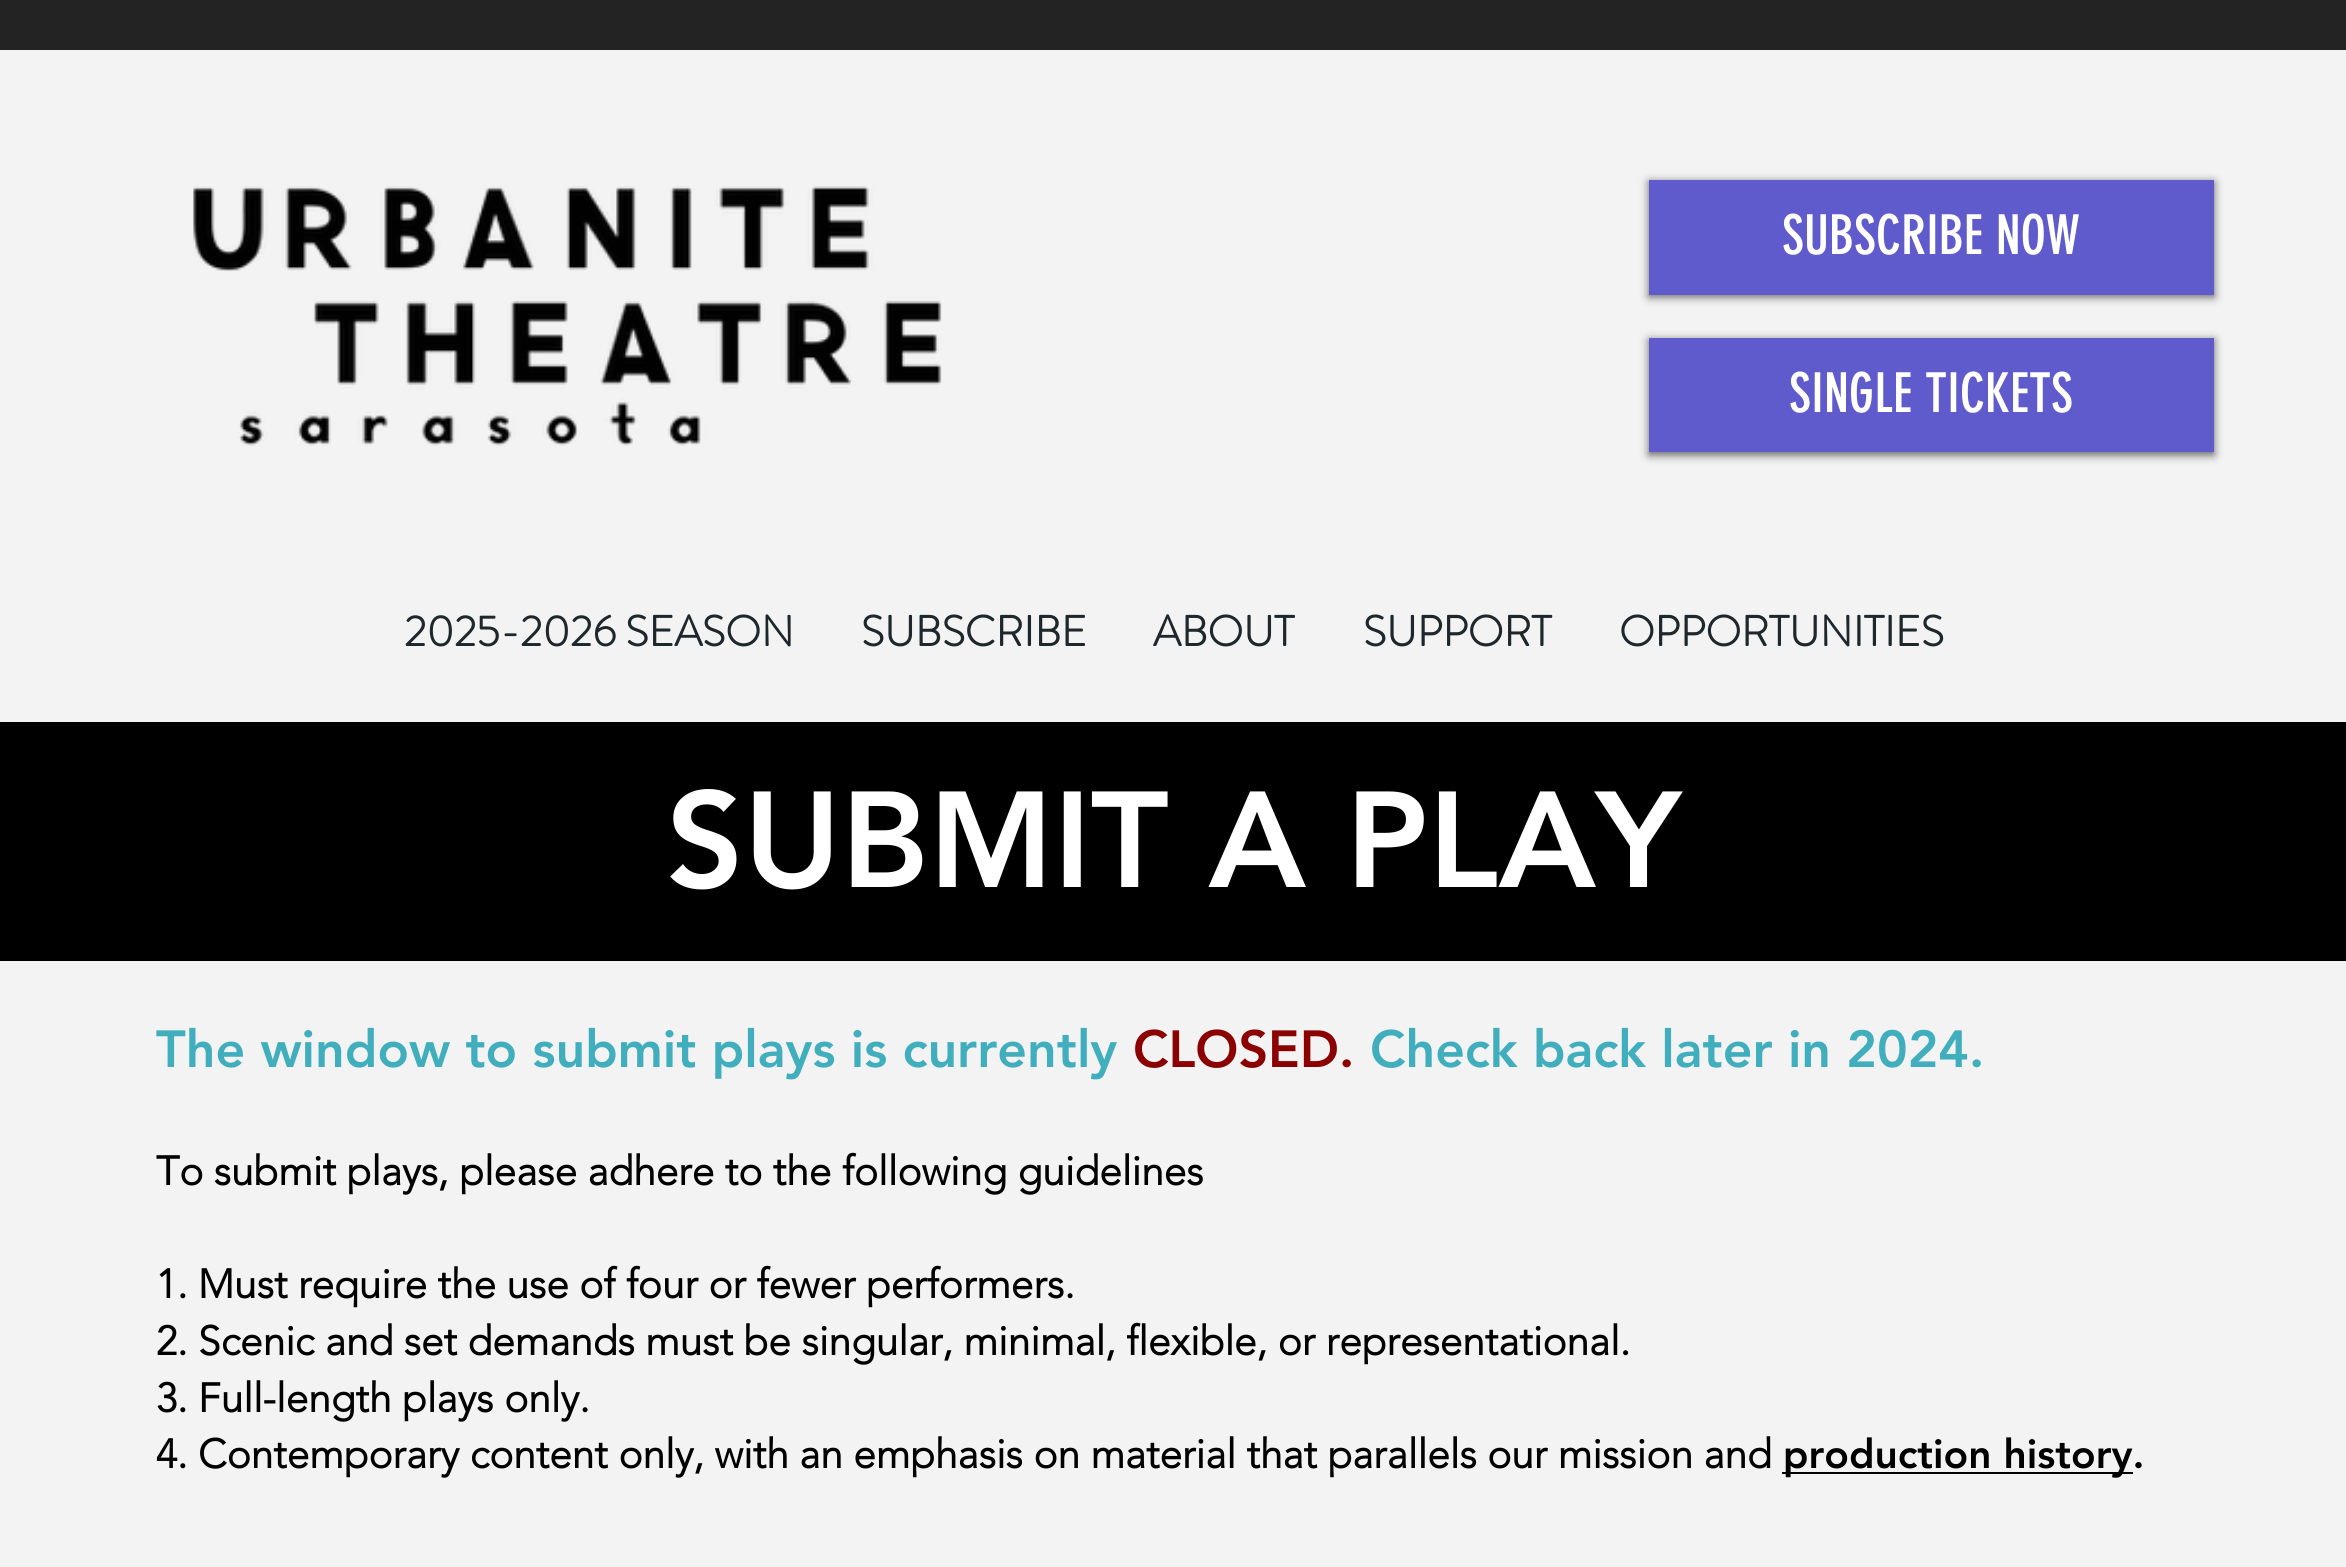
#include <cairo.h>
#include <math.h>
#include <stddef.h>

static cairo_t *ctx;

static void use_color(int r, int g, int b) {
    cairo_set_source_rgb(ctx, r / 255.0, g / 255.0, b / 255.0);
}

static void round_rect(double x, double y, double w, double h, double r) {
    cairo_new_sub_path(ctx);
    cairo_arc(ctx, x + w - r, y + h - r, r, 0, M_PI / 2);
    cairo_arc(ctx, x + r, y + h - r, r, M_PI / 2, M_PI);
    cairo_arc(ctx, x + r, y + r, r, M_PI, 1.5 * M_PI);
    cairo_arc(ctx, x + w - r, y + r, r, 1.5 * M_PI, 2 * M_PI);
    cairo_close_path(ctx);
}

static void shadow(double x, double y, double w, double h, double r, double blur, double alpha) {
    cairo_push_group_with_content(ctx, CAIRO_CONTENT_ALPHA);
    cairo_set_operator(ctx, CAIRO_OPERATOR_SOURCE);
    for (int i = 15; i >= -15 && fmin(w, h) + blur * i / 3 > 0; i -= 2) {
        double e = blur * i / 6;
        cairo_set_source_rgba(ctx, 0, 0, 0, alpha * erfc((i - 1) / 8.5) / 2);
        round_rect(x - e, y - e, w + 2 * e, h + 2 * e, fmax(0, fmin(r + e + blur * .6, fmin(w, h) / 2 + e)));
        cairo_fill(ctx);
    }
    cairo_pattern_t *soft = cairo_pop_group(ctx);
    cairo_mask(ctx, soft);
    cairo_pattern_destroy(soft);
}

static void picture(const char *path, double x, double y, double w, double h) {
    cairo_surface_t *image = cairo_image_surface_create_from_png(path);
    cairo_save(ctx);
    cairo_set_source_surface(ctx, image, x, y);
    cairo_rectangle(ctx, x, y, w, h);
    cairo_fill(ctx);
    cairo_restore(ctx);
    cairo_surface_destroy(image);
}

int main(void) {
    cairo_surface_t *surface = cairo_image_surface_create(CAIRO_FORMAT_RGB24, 2346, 1567);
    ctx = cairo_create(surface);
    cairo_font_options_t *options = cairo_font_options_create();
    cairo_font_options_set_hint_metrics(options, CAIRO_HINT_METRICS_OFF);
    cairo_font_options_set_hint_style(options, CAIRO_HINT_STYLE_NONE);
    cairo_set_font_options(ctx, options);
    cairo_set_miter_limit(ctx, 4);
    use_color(243, 243, 243);
    cairo_paint(ctx);
    use_color(36, 35, 35);
    cairo_rectangle(ctx, 0, 0, 2346, 50);
    cairo_fill(ctx);
    picture("img1.png", 193, 186, 749, 260);
    use_color(0, 0, 0);
    shadow(1649, 182, 565, 115, 0, 4.5, 0.6);
    use_color(95, 91, 205);
    cairo_rectangle(ctx, 1649, 180, 565, 115);
    cairo_fill(ctx);
    cairo_select_font_face(ctx, "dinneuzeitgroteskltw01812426", CAIRO_FONT_SLANT_NORMAL, CAIRO_FONT_WEIGHT_NORMAL);
    cairo_set_font_size(ctx, 54);
    use_color(255, 255, 255);
    cairo_move_to(ctx, 1782, 254);
    cairo_show_text(ctx, "SUBSCRIBE NOW");
    use_color(0, 0, 0);
    shadow(1649, 340, 565, 115, 0, 4.5, 0.6);
    use_color(95, 91, 205);
    cairo_rectangle(ctx, 1649, 338, 565, 114);
    cairo_fill(ctx);
    use_color(255, 255, 255);
    cairo_move_to(ctx, 1789, 412);
    cairo_show_text(ctx, "SINGLE TICKETS");
    cairo_select_font_face(ctx, "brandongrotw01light", CAIRO_FONT_SLANT_NORMAL, CAIRO_FONT_WEIGHT_BOLD);
    cairo_set_font_size(ctx, 42.75);
    use_color(30, 40, 44);
    cairo_move_to(ctx, 404, 646);
    cairo_show_text(ctx, "2025-2026 SEASON");
    cairo_move_to(ctx, 861, 646);
    cairo_show_text(ctx, "SUBSCRIBE");
    cairo_move_to(ctx, 1153, 646);
    cairo_show_text(ctx, "ABOUT");
    cairo_move_to(ctx, 1363, 646);
    cairo_show_text(ctx, "SUPPORT");
    cairo_move_to(ctx, 1619, 646);
    cairo_show_text(ctx, "OPPORTUNITIES");
    use_color(0, 0, 0);
    cairo_rectangle(ctx, 0, 722, 2346, 239);
    cairo_fill(ctx);
    cairo_select_font_face(ctx, "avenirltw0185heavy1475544 Black", CAIRO_FONT_SLANT_NORMAL, CAIRO_FONT_WEIGHT_NORMAL);
    cairo_set_font_size(ctx, 135);
    use_color(255, 255, 255);
    cairo_move_to(ctx, 666, 887);
    cairo_show_text(ctx, "SUBMIT A PLAY");
    cairo_set_font_size(ctx, 51.75);
    use_color(64, 174, 189);
    cairo_move_to(ctx, 156, 1067);
    cairo_show_text(ctx, "The window to submit plays is currently");
    use_color(139, 0, 0);
    cairo_move_to(ctx, 1133, 1067);
    cairo_show_text(ctx, "CLOSED.");
    use_color(64, 174, 189);
    cairo_move_to(ctx, 1370, 1067);
    cairo_show_text(ctx, "Check back later in 2024.");
    cairo_select_font_face(ctx, "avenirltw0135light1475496", CAIRO_FONT_SLANT_NORMAL, CAIRO_FONT_WEIGHT_BOLD);
    cairo_set_font_size(ctx, 40.5);
    use_color(0, 0, 0);
    cairo_move_to(ctx, 156, 1185);
    cairo_show_text(ctx, "To submit plays, please adhere to the following guidelines");
    cairo_move_to(ctx, 156, 1298);
    cairo_show_text(ctx, "1. Must require the use of four or fewer performers.");
    cairo_move_to(ctx, 156, 1355);
    cairo_show_text(ctx, "2. Scenic and set demands must be singular, minimal, flexible, or representational.");
    cairo_move_to(ctx, 156, 1412);
    cairo_show_text(ctx, "3. Full-length plays only.");
    cairo_move_to(ctx, 156, 1468);
    cairo_show_text(ctx, "4. Contemporary content only, with an emphasis on material that parallels our mission and");
    cairo_rectangle(ctx, 1782, 1472, 351, 2);
    cairo_fill(ctx);
    cairo_select_font_face(ctx, "avenirltw0185heavy1475544 Black", CAIRO_FONT_SLANT_NORMAL, CAIRO_FONT_WEIGHT_NORMAL);
    cairo_move_to(ctx, 1783, 1468);
    cairo_show_text(ctx, "production history.");
    cairo_surface_write_to_png(surface, "result.png");
    cairo_font_options_destroy(options);
    cairo_destroy(ctx);
    cairo_surface_destroy(surface);
    return 0;
}
